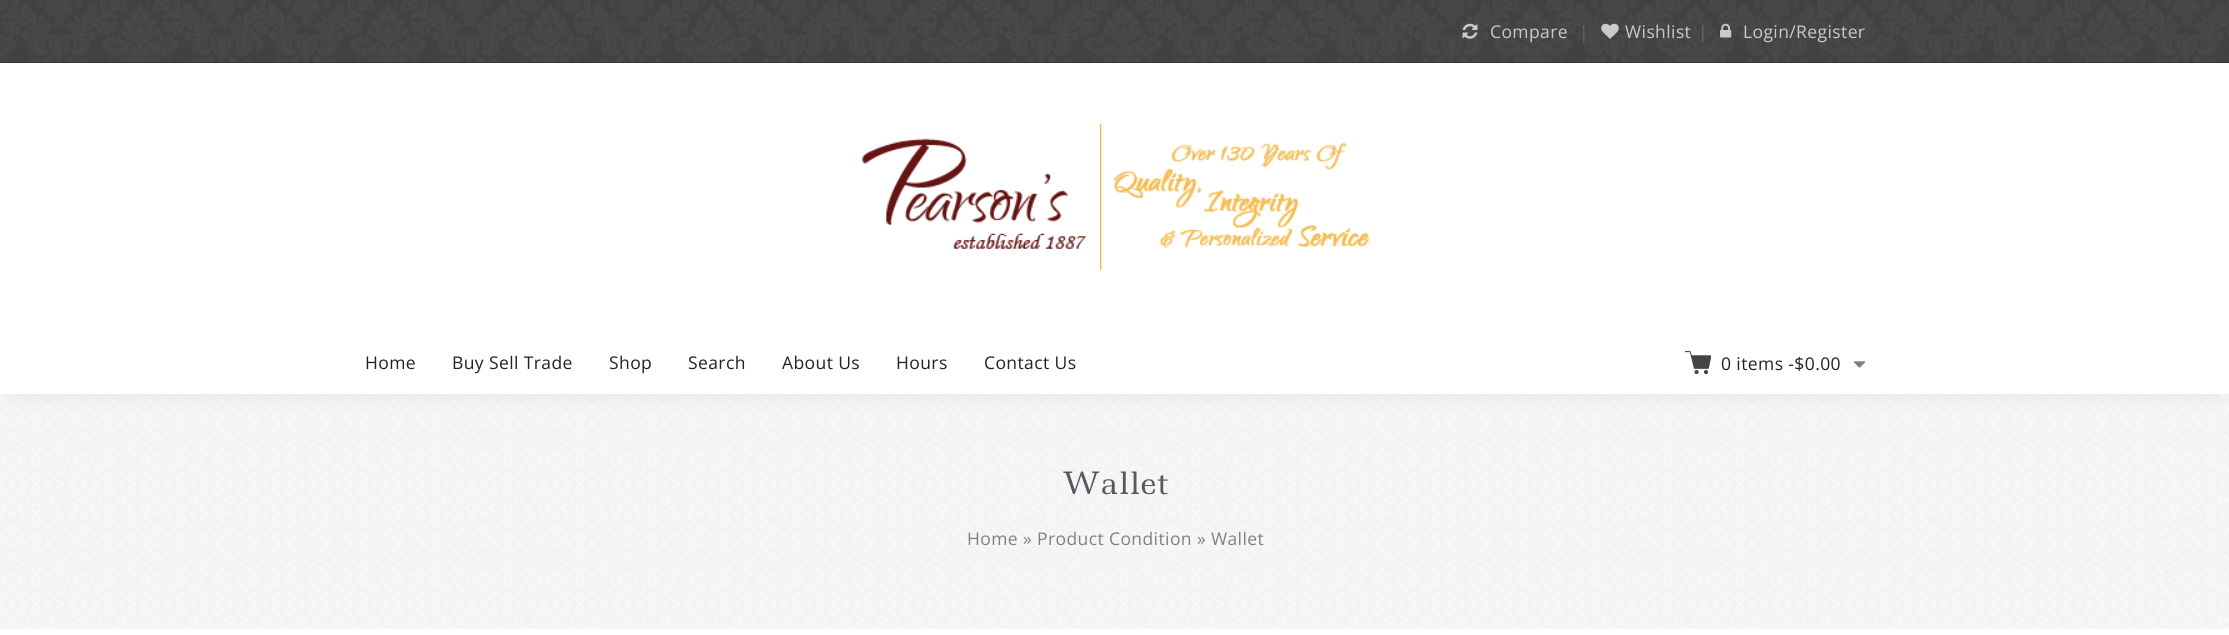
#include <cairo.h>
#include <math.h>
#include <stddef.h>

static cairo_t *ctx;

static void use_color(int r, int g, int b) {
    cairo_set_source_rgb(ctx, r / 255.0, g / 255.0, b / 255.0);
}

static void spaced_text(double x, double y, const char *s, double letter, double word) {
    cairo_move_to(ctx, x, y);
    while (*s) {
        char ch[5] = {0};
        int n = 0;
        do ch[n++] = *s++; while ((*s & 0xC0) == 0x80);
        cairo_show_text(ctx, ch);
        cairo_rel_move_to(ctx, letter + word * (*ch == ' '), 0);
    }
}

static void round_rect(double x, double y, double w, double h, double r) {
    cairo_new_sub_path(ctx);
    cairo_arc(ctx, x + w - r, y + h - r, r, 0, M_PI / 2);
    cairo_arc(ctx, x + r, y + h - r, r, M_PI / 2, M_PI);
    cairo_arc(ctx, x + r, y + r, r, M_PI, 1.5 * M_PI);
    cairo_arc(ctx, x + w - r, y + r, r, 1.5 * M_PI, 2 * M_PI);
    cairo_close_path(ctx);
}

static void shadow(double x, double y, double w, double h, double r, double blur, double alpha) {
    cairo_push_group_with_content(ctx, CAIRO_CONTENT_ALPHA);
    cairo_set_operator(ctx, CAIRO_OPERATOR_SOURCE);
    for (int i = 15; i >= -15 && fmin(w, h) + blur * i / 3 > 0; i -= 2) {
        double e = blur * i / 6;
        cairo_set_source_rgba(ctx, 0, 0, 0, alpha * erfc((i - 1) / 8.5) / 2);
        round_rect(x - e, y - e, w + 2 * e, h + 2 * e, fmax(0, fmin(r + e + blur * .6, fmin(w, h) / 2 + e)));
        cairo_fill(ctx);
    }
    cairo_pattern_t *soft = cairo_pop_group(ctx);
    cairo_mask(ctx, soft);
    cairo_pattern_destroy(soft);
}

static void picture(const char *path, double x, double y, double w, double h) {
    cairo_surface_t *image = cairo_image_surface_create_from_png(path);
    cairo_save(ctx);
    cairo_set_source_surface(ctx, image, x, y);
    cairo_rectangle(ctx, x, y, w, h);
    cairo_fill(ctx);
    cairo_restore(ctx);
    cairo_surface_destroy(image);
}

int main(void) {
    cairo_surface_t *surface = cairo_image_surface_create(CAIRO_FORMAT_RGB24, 2229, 635);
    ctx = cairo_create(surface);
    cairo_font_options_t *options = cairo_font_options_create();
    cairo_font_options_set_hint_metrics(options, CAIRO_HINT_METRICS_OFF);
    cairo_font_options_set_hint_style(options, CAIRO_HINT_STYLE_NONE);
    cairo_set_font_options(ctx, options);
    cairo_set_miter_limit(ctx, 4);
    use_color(255, 255, 255);
    cairo_paint(ctx);
    picture("img8.png", 0, 394, 2229, 235);
    use_color(192, 192, 192);
    shadow(13, 23, 2205, 368, 0, 10.5, 0.5);
    use_color(255, 255, 255);
    cairo_rectangle(ctx, 0, 63, 2229, 331);
    cairo_fill(ctx);
    use_color(34, 34, 34);
    cairo_rectangle(ctx, 0, 62, 2229, 1);
    cairo_fill(ctx);
    picture("img1.png", 0, 0, 2229, 63);
    picture("img2.png", 1462, 23, 16, 16);
    cairo_select_font_face(ctx, "Open Sans", CAIRO_FONT_SLANT_NORMAL, CAIRO_FONT_WEIGHT_NORMAL);
    cairo_set_font_size(ctx, 17.5);
    use_color(202, 202, 202);
    spaced_text(1490, 38, "Compare", 0.4, 0);
    use_color(104, 104, 104);
    spaced_text(1579, 38, "|", 0.4, 0);
    picture("img3.png", 1601, 23, 18, 16);
    use_color(202, 202, 202);
    spaced_text(1625, 38, "Wishlist", 0.4, 0);
    use_color(104, 104, 104);
    spaced_text(1698, 38, "|", 0.4, 0);
    picture("img4.png", 1720, 23, 12, 15);
    use_color(202, 202, 202);
    spaced_text(1743, 38, "Login/Register", 0.4, 0);
    picture("img5.png", 862, 123, 509, 148);
    use_color(34, 34, 34);
    spaced_text(365, 369, "Home", 0.4, 0);
    spaced_text(452, 369, "Buy Sell Trade", 0.4, 0);
    spaced_text(609, 369, "Shop", 0.4, 0);
    spaced_text(688, 369, "Search", 0.4, 0);
    spaced_text(782, 369, "About Us", 0.4, 0);
    spaced_text(896, 369, "Hours", 0.4, 0);
    spaced_text(984, 369, "Contact Us", 0.4, 0);
    picture("img6.png", 1685, 351, 26, 24);
    spaced_text(1721, 370, "0 items -$0.00", 0.4, 0);
    picture("img7.png", 1853, 361, 13, 7);
    cairo_select_font_face(ctx, "Ledger", CAIRO_FONT_SLANT_NORMAL, CAIRO_FONT_WEIGHT_NORMAL);
    cairo_set_font_size(ctx, 30);
    use_color(84, 89, 95);
    spaced_text(1062, 494, "Wallet", 0.4, 0);
    cairo_select_font_face(ctx, "Open Sans", CAIRO_FONT_SLANT_NORMAL, CAIRO_FONT_WEIGHT_NORMAL);
    cairo_set_font_size(ctx, 17.5);
    use_color(128, 128, 128);
    spaced_text(967, 545, "Home", 0.4, 0);
    spaced_text(1023, 545, "» Product Condition » Wallet", 0.4, 0);
    picture("img9.png", 2163, 569, 13, 11);
    cairo_surface_write_to_png(surface, "result.png");
    cairo_font_options_destroy(options);
    cairo_destroy(ctx);
    cairo_surface_destroy(surface);
    return 0;
}
